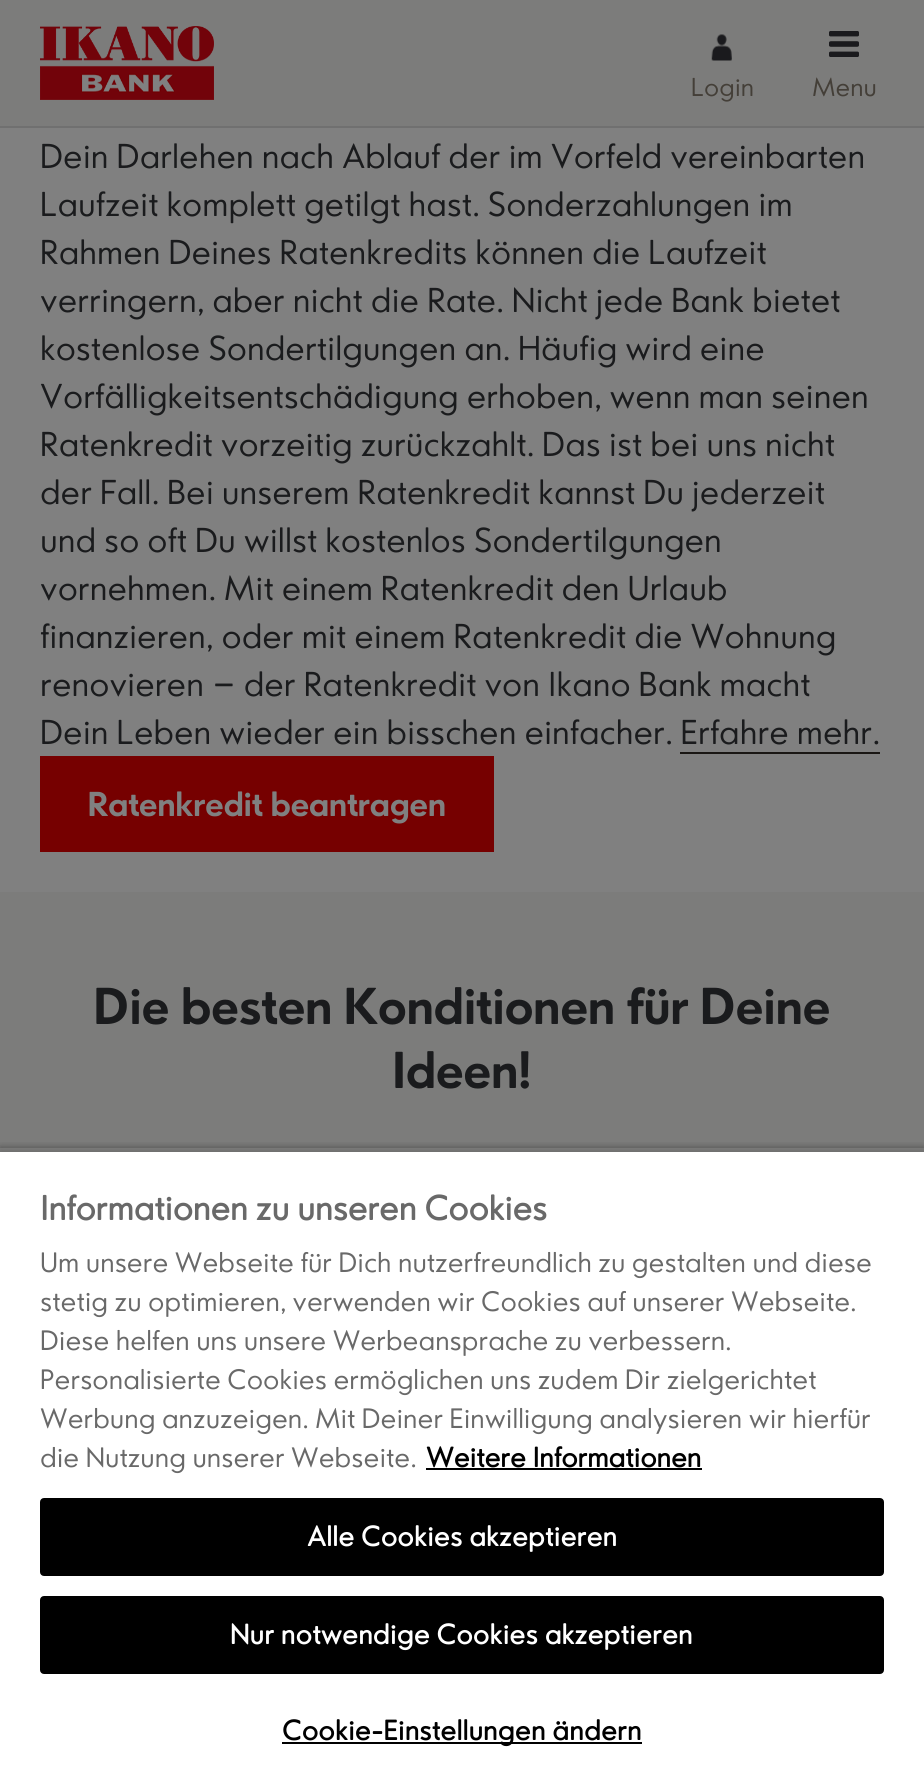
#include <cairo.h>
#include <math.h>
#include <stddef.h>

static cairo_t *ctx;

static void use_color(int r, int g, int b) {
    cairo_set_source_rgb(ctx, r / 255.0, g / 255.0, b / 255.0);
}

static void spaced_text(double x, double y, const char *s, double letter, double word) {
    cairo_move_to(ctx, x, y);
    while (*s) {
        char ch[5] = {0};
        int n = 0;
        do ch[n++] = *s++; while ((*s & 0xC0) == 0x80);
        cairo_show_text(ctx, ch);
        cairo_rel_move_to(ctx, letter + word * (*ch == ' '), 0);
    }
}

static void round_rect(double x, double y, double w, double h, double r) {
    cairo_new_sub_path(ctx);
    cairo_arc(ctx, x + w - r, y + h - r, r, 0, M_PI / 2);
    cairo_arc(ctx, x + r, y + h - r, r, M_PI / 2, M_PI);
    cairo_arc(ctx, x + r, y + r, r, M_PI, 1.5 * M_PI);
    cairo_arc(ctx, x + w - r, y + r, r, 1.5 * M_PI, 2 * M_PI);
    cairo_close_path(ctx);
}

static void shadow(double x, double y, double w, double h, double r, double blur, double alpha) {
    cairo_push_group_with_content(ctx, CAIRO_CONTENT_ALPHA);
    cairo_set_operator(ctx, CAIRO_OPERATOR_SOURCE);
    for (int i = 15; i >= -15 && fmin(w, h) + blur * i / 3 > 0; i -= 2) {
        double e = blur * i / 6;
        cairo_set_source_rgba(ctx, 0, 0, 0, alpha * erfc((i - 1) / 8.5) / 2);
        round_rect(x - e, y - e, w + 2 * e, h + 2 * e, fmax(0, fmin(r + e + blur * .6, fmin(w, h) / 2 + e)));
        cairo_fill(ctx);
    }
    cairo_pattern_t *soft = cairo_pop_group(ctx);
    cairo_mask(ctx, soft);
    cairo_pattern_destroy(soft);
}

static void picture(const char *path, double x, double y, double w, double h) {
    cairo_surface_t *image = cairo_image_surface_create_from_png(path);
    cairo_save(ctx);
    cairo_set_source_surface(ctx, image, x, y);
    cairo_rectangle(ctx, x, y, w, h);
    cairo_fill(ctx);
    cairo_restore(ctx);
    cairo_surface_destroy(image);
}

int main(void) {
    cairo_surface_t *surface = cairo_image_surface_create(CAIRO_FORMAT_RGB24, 924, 1788);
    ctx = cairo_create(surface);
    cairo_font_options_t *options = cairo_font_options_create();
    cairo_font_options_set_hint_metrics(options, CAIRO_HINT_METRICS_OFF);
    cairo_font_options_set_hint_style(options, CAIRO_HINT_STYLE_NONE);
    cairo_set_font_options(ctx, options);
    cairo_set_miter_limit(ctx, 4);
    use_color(124, 124, 123);
    cairo_paint(ctx);
    use_color(112, 112, 112);
    cairo_rectangle(ctx, 0, 126, 924, 2);
    cairo_fill(ctx);
    picture("img1.png", 40, 26, 174, 74);
    picture("img2.png", 711, 34, 21, 27);
    cairo_select_font_face(ctx, "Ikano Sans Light", CAIRO_FONT_SLANT_NORMAL, CAIRO_FONT_WEIGHT_NORMAL);
    cairo_set_font_size(ctx, 24);
    use_color(68, 63, 56);
    cairo_move_to(ctx, 691, 96);
    cairo_show_text(ctx, "Login");
    picture("img3.png", 829, 31, 30, 26);
    cairo_move_to(ctx, 812, 96);
    cairo_show_text(ctx, "Menu");
    use_color(128, 128, 128);
    cairo_rectangle(ctx, 0, 128, 924, 764);
    cairo_fill(ctx);
    cairo_set_font_size(ctx, 32);
    use_color(26, 27, 29);
    cairo_move_to(ctx, 40, 168);
    cairo_show_text(ctx, "Dein Darlehen nach Ablauf der im Vorfeld vereinbarten");
    cairo_move_to(ctx, 40, 216);
    cairo_show_text(ctx, "Laufzeit komplett getilgt hast. Sonderzahlungen im");
    cairo_move_to(ctx, 40, 264);
    cairo_show_text(ctx, "Rahmen Deines Ratenkredits können die Laufzeit");
    cairo_move_to(ctx, 40, 312);
    cairo_show_text(ctx, "verringern, aber nicht die Rate. Nicht jede Bank bietet");
    cairo_move_to(ctx, 40, 360);
    cairo_show_text(ctx, "kostenlose Sondertilgungen an. Häufig wird eine");
    cairo_move_to(ctx, 40, 408);
    cairo_show_text(ctx, "Vorfälligkeitsentschädigung erhoben, wenn man seinen");
    cairo_move_to(ctx, 40, 456);
    cairo_show_text(ctx, "Ratenkredit vorzeitig zurückzahlt. Das ist bei uns nicht");
    cairo_move_to(ctx, 40, 504);
    cairo_show_text(ctx, "der Fall. Bei unserem Ratenkredit kannst Du jederzeit");
    cairo_move_to(ctx, 40, 552);
    cairo_show_text(ctx, "und so oft Du willst kostenlos Sondertilgungen");
    cairo_move_to(ctx, 40, 600);
    cairo_show_text(ctx, "vornehmen. Mit einem Ratenkredit den Urlaub");
    cairo_move_to(ctx, 40, 648);
    cairo_show_text(ctx, "finanzieren, oder mit einem Ratenkredit die Wohnung");
    cairo_move_to(ctx, 40, 696);
    cairo_show_text(ctx, "renovieren – der Ratenkredit von Ikano Bank macht");
    cairo_move_to(ctx, 40, 744);
    cairo_show_text(ctx, "Dein Leben wieder ein bisschen einfacher. Erfahre mehr.");
    use_color(26, 23, 20);
    cairo_rectangle(ctx, 680, 752, 200, 2);
    cairo_fill(ctx);
    use_color(118, 0, 0);
    cairo_rectangle(ctx, 40, 756, 454, 96);
    cairo_fill(ctx);
    cairo_select_font_face(ctx, "Ikano Sans", CAIRO_FONT_SLANT_NORMAL, CAIRO_FONT_WEIGHT_BOLD);
    use_color(128, 128, 128);
    cairo_move_to(ctx, 88, 816);
    cairo_show_text(ctx, "Ratenkredit beantragen");
    cairo_set_font_size(ctx, 48);
    use_color(26, 27, 29);
    cairo_move_to(ctx, 94, 1024);
    cairo_show_text(ctx, "Die besten Konditionen für Deine");
    cairo_move_to(ctx, 392, 1088);
    cairo_show_text(ctx, "Ideen!");
    cairo_save(ctx);
    cairo_rectangle(ctx, 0, 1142, 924, 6);
    cairo_clip(ctx);
    use_color(0, 0, 0);
    shadow(0, 1148, 924, 640, 0, 4, 0.35);
    cairo_restore(ctx);
    use_color(0, 0, 0);
    shadow(0, 1152, 924, 636, 0, 4, 0.2);
    use_color(255, 255, 255);
    cairo_rectangle(ctx, 0, 1152, 924, 636);
    cairo_fill(ctx);
    cairo_select_font_face(ctx, "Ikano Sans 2", CAIRO_FONT_SLANT_NORMAL, CAIRO_FONT_WEIGHT_BOLD);
    cairo_set_font_size(ctx, 32);
    use_color(105, 105, 105);
    cairo_move_to(ctx, 40, 1220);
    cairo_show_text(ctx, "Informationen zu unseren Cookies");
    cairo_select_font_face(ctx, "Ikano Sans Light", CAIRO_FONT_SLANT_NORMAL, CAIRO_FONT_WEIGHT_NORMAL);
    cairo_set_font_size(ctx, 26);
    cairo_move_to(ctx, 40, 1272);
    cairo_show_text(ctx, "Um unsere Webseite für Dich nutzerfreundlich zu gestalten und diese");
    cairo_move_to(ctx, 40, 1311);
    cairo_show_text(ctx, "stetig zu optimieren, verwenden wir Cookies auf unserer Webseite.");
    cairo_move_to(ctx, 40, 1350);
    cairo_show_text(ctx, "Diese helfen uns unsere Werbeansprache zu verbessern.");
    cairo_move_to(ctx, 40, 1389);
    cairo_show_text(ctx, "Personalisierte Cookies ermöglichen uns zudem Dir zielgerichtet");
    cairo_move_to(ctx, 40, 1428);
    cairo_show_text(ctx, "Werbung anzuzeigen. Mit Deiner Einwilligung analysieren wir hierfür");
    cairo_move_to(ctx, 40, 1467);
    cairo_show_text(ctx, "die Nutzung unserer Webseite.");
    cairo_select_font_face(ctx, "Ikano Sans 2", CAIRO_FONT_SLANT_NORMAL, CAIRO_FONT_WEIGHT_BOLD);
    use_color(0, 0, 0);
    cairo_move_to(ctx, 426, 1467);
    cairo_show_text(ctx, "Weitere Informationen");
    cairo_rectangle(ctx, 426, 1468, 276, 2);
    cairo_fill(ctx);
    round_rect(41, 1499, 842, 76, 3);
    cairo_fill_preserve(ctx);
    cairo_stroke(ctx);
    use_color(255, 255, 255);
    spaced_text(307, 1546, "Alle Cookies akzeptieren", 0.25, 0);
    use_color(0, 0, 0);
    round_rect(41, 1597, 842, 76, 3);
    cairo_fill_preserve(ctx);
    cairo_stroke(ctx);
    use_color(255, 255, 255);
    spaced_text(230, 1644, "Nur notwendige Cookies akzeptieren", 0.25, 0);
    use_color(0, 0, 0);
    cairo_rectangle(ctx, 282, 1742, 360, 2);
    cairo_fill(ctx);
    spaced_text(282, 1740, "Cookie-Einstellungen ändern", 0.25, 0);
    cairo_surface_write_to_png(surface, "result.png");
    cairo_font_options_destroy(options);
    cairo_destroy(ctx);
    cairo_surface_destroy(surface);
    return 0;
}
